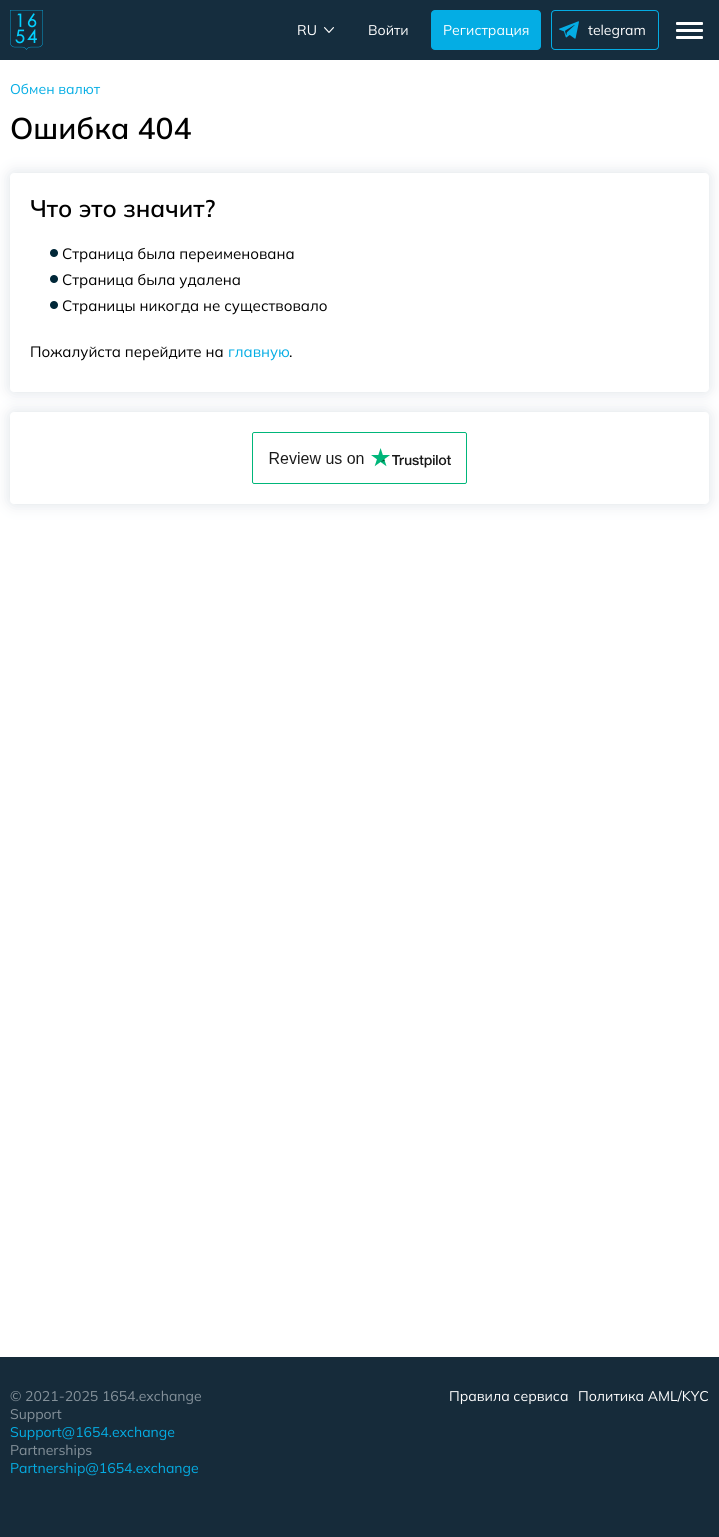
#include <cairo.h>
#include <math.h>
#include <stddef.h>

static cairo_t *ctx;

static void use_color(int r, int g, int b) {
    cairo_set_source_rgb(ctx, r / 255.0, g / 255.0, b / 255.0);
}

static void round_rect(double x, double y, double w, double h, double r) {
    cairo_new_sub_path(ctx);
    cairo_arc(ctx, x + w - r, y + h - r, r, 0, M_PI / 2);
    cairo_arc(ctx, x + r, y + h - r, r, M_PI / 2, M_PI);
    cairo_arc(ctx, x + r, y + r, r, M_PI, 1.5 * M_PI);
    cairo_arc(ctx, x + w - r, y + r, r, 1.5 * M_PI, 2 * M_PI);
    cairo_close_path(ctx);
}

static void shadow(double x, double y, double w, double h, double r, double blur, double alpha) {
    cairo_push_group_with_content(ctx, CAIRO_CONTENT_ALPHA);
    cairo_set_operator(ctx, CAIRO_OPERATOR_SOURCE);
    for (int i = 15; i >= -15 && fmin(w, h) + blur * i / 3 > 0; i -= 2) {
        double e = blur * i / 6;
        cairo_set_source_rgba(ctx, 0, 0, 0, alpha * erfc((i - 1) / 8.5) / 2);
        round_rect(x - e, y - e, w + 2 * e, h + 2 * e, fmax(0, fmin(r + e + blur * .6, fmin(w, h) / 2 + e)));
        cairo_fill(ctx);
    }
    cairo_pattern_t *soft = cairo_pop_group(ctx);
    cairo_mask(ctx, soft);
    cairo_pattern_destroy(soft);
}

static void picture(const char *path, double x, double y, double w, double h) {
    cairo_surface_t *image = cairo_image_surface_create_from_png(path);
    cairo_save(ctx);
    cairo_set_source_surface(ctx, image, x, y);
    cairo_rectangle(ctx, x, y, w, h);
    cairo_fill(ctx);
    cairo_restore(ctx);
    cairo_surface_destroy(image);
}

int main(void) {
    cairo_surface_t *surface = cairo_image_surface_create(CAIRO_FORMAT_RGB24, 719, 1537);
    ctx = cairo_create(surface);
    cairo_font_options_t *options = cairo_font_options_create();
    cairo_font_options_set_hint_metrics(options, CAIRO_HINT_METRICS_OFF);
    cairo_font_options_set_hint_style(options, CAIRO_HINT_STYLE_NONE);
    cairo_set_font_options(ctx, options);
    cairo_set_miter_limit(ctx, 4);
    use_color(255, 255, 255);
    cairo_paint(ctx);
    use_color(21, 45, 62);
    cairo_rectangle(ctx, 0, 0, 719, 60);
    cairo_fill(ctx);
    picture("img1.png", 10, 10, 33, 40);
    cairo_select_font_face(ctx, "Mulish", CAIRO_FONT_SLANT_NORMAL, CAIRO_FONT_WEIGHT_NORMAL);
    cairo_set_font_size(ctx, 14);
    use_color(255, 255, 255);
    cairo_move_to(ctx, 297, 35);
    cairo_show_text(ctx, "RU");
    picture("img2.png", 324, 27, 10, 6);
    cairo_move_to(ctx, 368, 35);
    cairo_show_text(ctx, "Войти");
    use_color(4, 173, 228);
    round_rect(431, 10, 110, 40, 4);
    cairo_fill(ctx);
    use_color(255, 255, 255);
    cairo_move_to(ctx, 443, 35);
    cairo_show_text(ctx, "Регистрация");
    picture("img3.png", 559, 21, 20, 18);
    round_rect(551.5, 10.5, 107, 39, 3.5);
    use_color(4, 173, 228);
    cairo_set_line_width(ctx, 1);
    cairo_stroke(ctx);
    use_color(255, 255, 255);
    cairo_move_to(ctx, 588, 35);
    cairo_show_text(ctx, "telegram");
    picture("img4.png", 676, 22, 27, 17);
    use_color(4, 173, 228);
    cairo_move_to(ctx, 10, 94);
    cairo_show_text(ctx, "Обмен валют");
    cairo_select_font_face(ctx, "Mulish SemiBold", CAIRO_FONT_SLANT_NORMAL, CAIRO_FONT_WEIGHT_NORMAL);
    cairo_set_font_size(ctx, 30);
    use_color(0, 0, 0);
    cairo_move_to(ctx, 10, 139);
    cairo_show_text(ctx, "Ошибка 404");
    use_color(220, 225, 230);
    shadow(10, 173, 699, 219, 4, 7.5, 1);
    use_color(255, 255, 255);
    round_rect(10, 173, 699, 219, 4);
    cairo_fill(ctx);
    cairo_set_font_size(ctx, 24);
    use_color(0, 0, 0);
    cairo_move_to(ctx, 30, 217);
    cairo_show_text(ctx, "Что это значит?");
    picture("img5.png", 50, 249, 8, 8);
    cairo_select_font_face(ctx, "Mulish", CAIRO_FONT_SLANT_NORMAL, CAIRO_FONT_WEIGHT_NORMAL);
    cairo_set_font_size(ctx, 15);
    cairo_move_to(ctx, 62, 259);
    cairo_show_text(ctx, "Страница была переименована");
    picture("img5.png", 50, 275, 8, 8);
    cairo_move_to(ctx, 62, 285);
    cairo_show_text(ctx, "Страница была удалена");
    picture("img5.png", 50, 301, 8, 8);
    cairo_move_to(ctx, 62, 311);
    cairo_show_text(ctx, "Страницы никогда не существовало");
    cairo_move_to(ctx, 30, 357);
    cairo_show_text(ctx, "Пожалуйста перейдите на");
    use_color(4, 173, 228);
    cairo_move_to(ctx, 228, 357);
    cairo_show_text(ctx, "главную");
    use_color(0, 0, 0);
    cairo_move_to(ctx, 289, 357);
    cairo_show_text(ctx, ".");
    use_color(220, 225, 230);
    shadow(10, 412, 699, 92, 4, 7.5, 1);
    use_color(255, 255, 255);
    round_rect(10, 412, 699, 92, 4);
    cairo_fill(ctx);
    picture("img6.png", 252, 432, 215, 52);
    use_color(22, 43, 58);
    cairo_rectangle(ctx, 0, 1357, 719, 180);
    cairo_fill(ctx);
    cairo_set_font_size(ctx, 14);
    use_color(132, 145, 154);
    cairo_move_to(ctx, 10, 1401);
    cairo_show_text(ctx, "© 2021-2025 1654.exchange");
    cairo_move_to(ctx, 10, 1419);
    cairo_show_text(ctx, "Support");
    use_color(4, 173, 228);
    cairo_move_to(ctx, 10, 1437);
    cairo_show_text(ctx, "Support@1654.exchange");
    use_color(132, 145, 154);
    cairo_move_to(ctx, 10, 1455);
    cairo_show_text(ctx, "Partnerships");
    use_color(4, 173, 228);
    cairo_move_to(ctx, 10, 1473);
    cairo_show_text(ctx, "Partnership@1654.exchange");
    use_color(255, 255, 255);
    cairo_move_to(ctx, 449, 1401);
    cairo_show_text(ctx, "Правила сервиса");
    cairo_move_to(ctx, 578, 1401);
    cairo_show_text(ctx, "Политика AML/KYC");
    cairo_surface_write_to_png(surface, "result.png");
    cairo_font_options_destroy(options);
    cairo_destroy(ctx);
    cairo_surface_destroy(surface);
    return 0;
}
